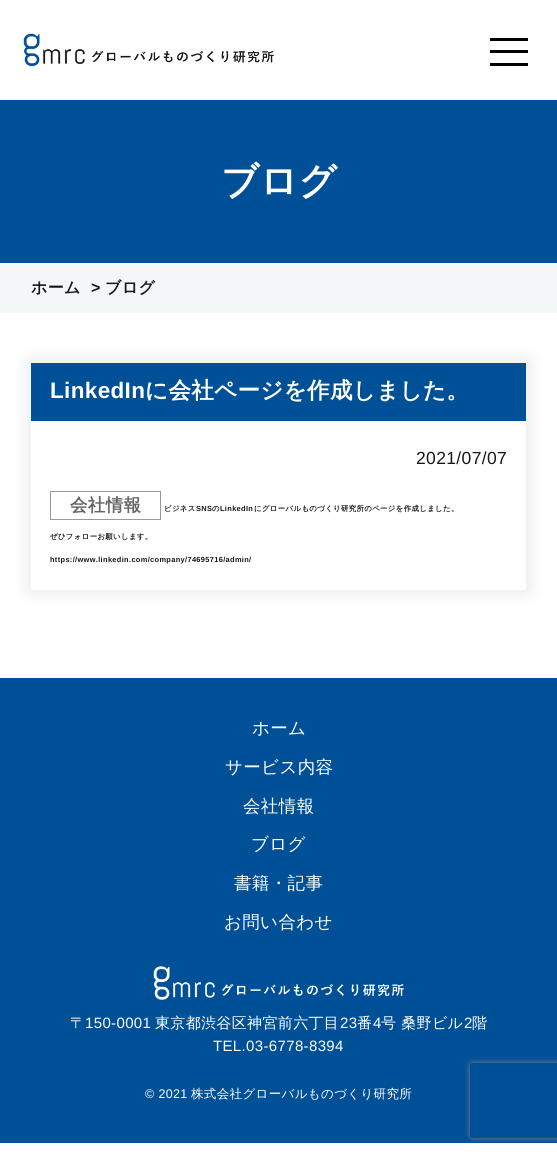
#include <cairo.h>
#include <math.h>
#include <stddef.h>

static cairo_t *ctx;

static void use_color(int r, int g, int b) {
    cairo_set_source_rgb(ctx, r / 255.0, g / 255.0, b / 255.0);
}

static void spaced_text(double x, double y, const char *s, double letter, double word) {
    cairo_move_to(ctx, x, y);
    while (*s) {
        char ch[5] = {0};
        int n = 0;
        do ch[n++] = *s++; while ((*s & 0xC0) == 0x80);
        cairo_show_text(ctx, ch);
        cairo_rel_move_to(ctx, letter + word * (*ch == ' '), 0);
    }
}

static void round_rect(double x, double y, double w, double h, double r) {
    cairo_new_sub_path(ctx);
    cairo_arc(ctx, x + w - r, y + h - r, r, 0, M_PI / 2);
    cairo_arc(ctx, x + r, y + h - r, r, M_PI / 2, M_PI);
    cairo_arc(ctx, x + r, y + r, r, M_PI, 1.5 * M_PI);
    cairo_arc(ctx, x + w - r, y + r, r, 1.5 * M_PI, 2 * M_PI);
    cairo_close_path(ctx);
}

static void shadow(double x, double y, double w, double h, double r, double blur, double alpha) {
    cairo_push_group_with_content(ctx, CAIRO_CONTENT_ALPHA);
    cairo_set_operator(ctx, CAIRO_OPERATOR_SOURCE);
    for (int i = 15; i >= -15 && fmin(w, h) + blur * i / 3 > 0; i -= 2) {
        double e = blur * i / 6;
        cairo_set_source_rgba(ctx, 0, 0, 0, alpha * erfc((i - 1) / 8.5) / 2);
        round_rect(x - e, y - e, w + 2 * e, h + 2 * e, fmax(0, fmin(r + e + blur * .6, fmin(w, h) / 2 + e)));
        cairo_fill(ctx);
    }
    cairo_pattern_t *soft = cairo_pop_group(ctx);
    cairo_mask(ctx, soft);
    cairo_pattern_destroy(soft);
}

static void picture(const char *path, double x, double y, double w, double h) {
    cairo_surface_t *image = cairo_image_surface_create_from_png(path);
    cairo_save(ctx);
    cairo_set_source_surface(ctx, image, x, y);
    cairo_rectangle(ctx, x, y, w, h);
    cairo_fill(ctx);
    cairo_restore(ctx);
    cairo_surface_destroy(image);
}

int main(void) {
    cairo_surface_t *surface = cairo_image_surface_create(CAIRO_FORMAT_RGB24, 557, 1154);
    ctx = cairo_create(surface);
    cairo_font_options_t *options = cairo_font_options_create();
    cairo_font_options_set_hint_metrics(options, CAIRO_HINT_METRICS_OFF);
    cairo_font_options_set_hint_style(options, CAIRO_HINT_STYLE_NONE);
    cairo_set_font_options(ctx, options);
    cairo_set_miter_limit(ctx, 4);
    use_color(255, 255, 255);
    cairo_paint(ctx);
    picture("img1.png", 23, 33, 251, 34);
    use_color(0, 0, 0);
    cairo_rectangle(ctx, 490, 38, 38, 3);
    cairo_fill(ctx);
    cairo_rectangle(ctx, 490, 50, 38, 3);
    cairo_fill(ctx);
    cairo_rectangle(ctx, 490, 63, 38, 3);
    cairo_fill(ctx);
    use_color(0, 80, 152);
    cairo_rectangle(ctx, 0, 100, 557, 163);
    cairo_fill(ctx);
    cairo_select_font_face(ctx, "WenQuanYi Zen Hei", CAIRO_FONT_SLANT_NORMAL, CAIRO_FONT_WEIGHT_BOLD);
    cairo_set_font_size(ctx, 37.5);
    use_color(255, 255, 255);
    spaced_text(221, 194, "ブログ", 0.35, 0);
    use_color(244, 247, 247);
    cairo_rectangle(ctx, 0, 263, 557, 50);
    cairo_fill(ctx);
    cairo_set_font_size(ctx, 16);
    use_color(24, 23, 23);
    spaced_text(31, 293, "ホーム", 0.35, 0);
    cairo_select_font_face(ctx, "Liberation Sans", CAIRO_FONT_SLANT_NORMAL, CAIRO_FONT_WEIGHT_BOLD);
    spaced_text(91, 293, ">", 0.35, 0);
    cairo_select_font_face(ctx, "WenQuanYi Zen Hei", CAIRO_FONT_SLANT_NORMAL, CAIRO_FONT_WEIGHT_BOLD);
    spaced_text(105, 293, "ブログ", 0.35, 0);
    use_color(0, 0, 0);
    shadow(30, 361, 498, 230, 0, 9.5, 0.1);
    use_color(0, 80, 152);
    cairo_rectangle(ctx, 31, 363, 495, 58);
    cairo_fill(ctx);
    cairo_select_font_face(ctx, "Liberation Sans", CAIRO_FONT_SLANT_NORMAL, CAIRO_FONT_WEIGHT_BOLD);
    cairo_set_font_size(ctx, 22.5);
    use_color(255, 255, 255);
    spaced_text(50, 398, "LinkedIn", 0.35, 0);
    cairo_select_font_face(ctx, "WenQuanYi Zen Hei", CAIRO_FONT_SLANT_NORMAL, CAIRO_FONT_WEIGHT_BOLD);
    spaced_text(145, 398, "に会社ページを作成しました。", 0.35, 0);
    cairo_rectangle(ctx, 31, 421, 495, 169);
    cairo_fill(ctx);
    cairo_select_font_face(ctx, "Liberation Sans", CAIRO_FONT_SLANT_NORMAL, CAIRO_FONT_WEIGHT_NORMAL);
    cairo_set_font_size(ctx, 17.5);
    use_color(24, 23, 23);
    spaced_text(416, 464, "2021/07/07", 0.35, 0);
    cairo_rectangle(ctx, 50.5, 491.5, 110, 28);
    use_color(153, 153, 153);
    cairo_set_line_width(ctx, 1);
    cairo_stroke(ctx);
    cairo_select_font_face(ctx, "WenQuanYi Zen Hei", CAIRO_FONT_SLANT_NORMAL, CAIRO_FONT_WEIGHT_BOLD);
    use_color(102, 102, 102);
    spaced_text(70, 511, "会社情報", 0.35, 0);
    cairo_set_font_size(ctx, 7.4);
    use_color(24, 23, 23);
    spaced_text(164, 511, "ビジネス", 0.35, 0);
    cairo_select_font_face(ctx, "Liberation Sans", CAIRO_FONT_SLANT_NORMAL, CAIRO_FONT_WEIGHT_BOLD);
    spaced_text(196, 511, "SNS", 0.35, 0);
    cairo_select_font_face(ctx, "WenQuanYi Zen Hei", CAIRO_FONT_SLANT_NORMAL, CAIRO_FONT_WEIGHT_BOLD);
    spaced_text(212, 511, "の", 0.35, 0);
    cairo_select_font_face(ctx, "Liberation Sans", CAIRO_FONT_SLANT_NORMAL, CAIRO_FONT_WEIGHT_BOLD);
    spaced_text(220, 511, "LinkedIn", 0.35, 0);
    cairo_select_font_face(ctx, "WenQuanYi Zen Hei", CAIRO_FONT_SLANT_NORMAL, CAIRO_FONT_WEIGHT_BOLD);
    spaced_text(254, 511, "にグローバルものづくり研究所のページを作成しました。", 0.35, 0);
    spaced_text(50, 539, "ぜひフォローお願いします。", 0.35, 0);
    cairo_select_font_face(ctx, "Liberation Sans", CAIRO_FONT_SLANT_NORMAL, CAIRO_FONT_WEIGHT_BOLD);
    spaced_text(50, 562, "https://www.linkedin.com/company/74695716/admin/", 0.35, 0);
    use_color(0, 80, 152);
    cairo_rectangle(ctx, 0, 678, 557, 465);
    cairo_fill(ctx);
    cairo_select_font_face(ctx, "WenQuanYi Zen Hei Medium", CAIRO_FONT_SLANT_NORMAL, CAIRO_FONT_WEIGHT_NORMAL);
    cairo_set_font_size(ctx, 17.5);
    use_color(255, 255, 255);
    spaced_text(252, 734, "ホーム", 0.35, 0);
    spaced_text(225, 773, "サービス内容", 0.35, 0);
    spaced_text(243, 812, "会社情報", 0.35, 0);
    spaced_text(251, 850, "ブログ", 0.35, 0);
    spaced_text(234, 889, "書籍・記事", 0.35, 0);
    spaced_text(224, 928, "お問い合わせ", 0.35, 0);
    picture("img2.png", 153, 966, 251, 34);
    cairo_set_font_size(ctx, 15);
    spaced_text(70, 1028, "〒", 0.35, 0);
    cairo_select_font_face(ctx, "Liberation Sans", CAIRO_FONT_SLANT_NORMAL, CAIRO_FONT_WEIGHT_NORMAL);
    spaced_text(85, 1028, "150-0001", 0.35, 0);
    cairo_select_font_face(ctx, "WenQuanYi Zen Hei Medium", CAIRO_FONT_SLANT_NORMAL, CAIRO_FONT_WEIGHT_NORMAL);
    spaced_text(155, 1028, "東京都渋谷区神宮前六丁目", 0.35, 0);
    cairo_select_font_face(ctx, "Liberation Sans", CAIRO_FONT_SLANT_NORMAL, CAIRO_FONT_WEIGHT_NORMAL);
    spaced_text(340, 1028, "23", 0.35, 0);
    cairo_select_font_face(ctx, "WenQuanYi Zen Hei Medium", CAIRO_FONT_SLANT_NORMAL, CAIRO_FONT_WEIGHT_NORMAL);
    spaced_text(357, 1028, "番", 0.35, 0);
    cairo_select_font_face(ctx, "Liberation Sans", CAIRO_FONT_SLANT_NORMAL, CAIRO_FONT_WEIGHT_NORMAL);
    spaced_text(373, 1028, "4", 0.35, 0);
    cairo_select_font_face(ctx, "WenQuanYi Zen Hei Medium", CAIRO_FONT_SLANT_NORMAL, CAIRO_FONT_WEIGHT_NORMAL);
    spaced_text(381, 1028, "号 桑野ビル", 0.35, 0);
    cairo_select_font_face(ctx, "Liberation Sans", CAIRO_FONT_SLANT_NORMAL, CAIRO_FONT_WEIGHT_NORMAL);
    spaced_text(464, 1028, "2", 0.35, 0);
    cairo_select_font_face(ctx, "WenQuanYi Zen Hei Medium", CAIRO_FONT_SLANT_NORMAL, CAIRO_FONT_WEIGHT_NORMAL);
    spaced_text(472, 1028, "階", 0.35, 0);
    cairo_select_font_face(ctx, "Liberation Sans", CAIRO_FONT_SLANT_NORMAL, CAIRO_FONT_WEIGHT_NORMAL);
    spaced_text(213, 1051, "TEL.03-6778-8394", 0.35, 0);
    cairo_set_font_size(ctx, 12.5);
    spaced_text(145, 1098, "© 2021", 0.35, 0);
    cairo_select_font_face(ctx, "WenQuanYi Zen Hei Medium", CAIRO_FONT_SLANT_NORMAL, CAIRO_FONT_WEIGHT_NORMAL);
    spaced_text(191, 1098, "株式会社グローバルものづくり研究所", 0.35, 0);
    cairo_save(ctx);
    cairo_set_fill_rule(ctx, CAIRO_FILL_RULE_EVEN_ODD);
    cairo_new_path(ctx);
    cairo_move_to(ctx, 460, 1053);
    cairo_line_to(ctx, 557, 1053);
    cairo_line_to(ctx, 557, 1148);
    cairo_line_to(ctx, 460, 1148);
    cairo_close_path(ctx);
    cairo_move_to(ctx, 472.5, 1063);
    cairo_line_to(ctx, 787.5, 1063);
    cairo_curve_to(ctx, 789, 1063, 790, 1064, 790, 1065.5);
    cairo_line_to(ctx, 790, 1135.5);
    cairo_curve_to(ctx, 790, 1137, 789, 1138, 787.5, 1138);
    cairo_line_to(ctx, 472.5, 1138);
    cairo_curve_to(ctx, 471, 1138, 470, 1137, 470, 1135.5);
    cairo_line_to(ctx, 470, 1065.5);
    cairo_curve_to(ctx, 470, 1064, 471, 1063, 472.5, 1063);
    cairo_close_path(ctx);
    cairo_clip(ctx);
    use_color(128, 128, 128);
    shadow(470, 1063, 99, 75, 2.5, 3, 1);
    cairo_restore(ctx);
    cairo_surface_write_to_png(surface, "result.png");
    cairo_font_options_destroy(options);
    cairo_destroy(ctx);
    cairo_surface_destroy(surface);
    return 0;
}
